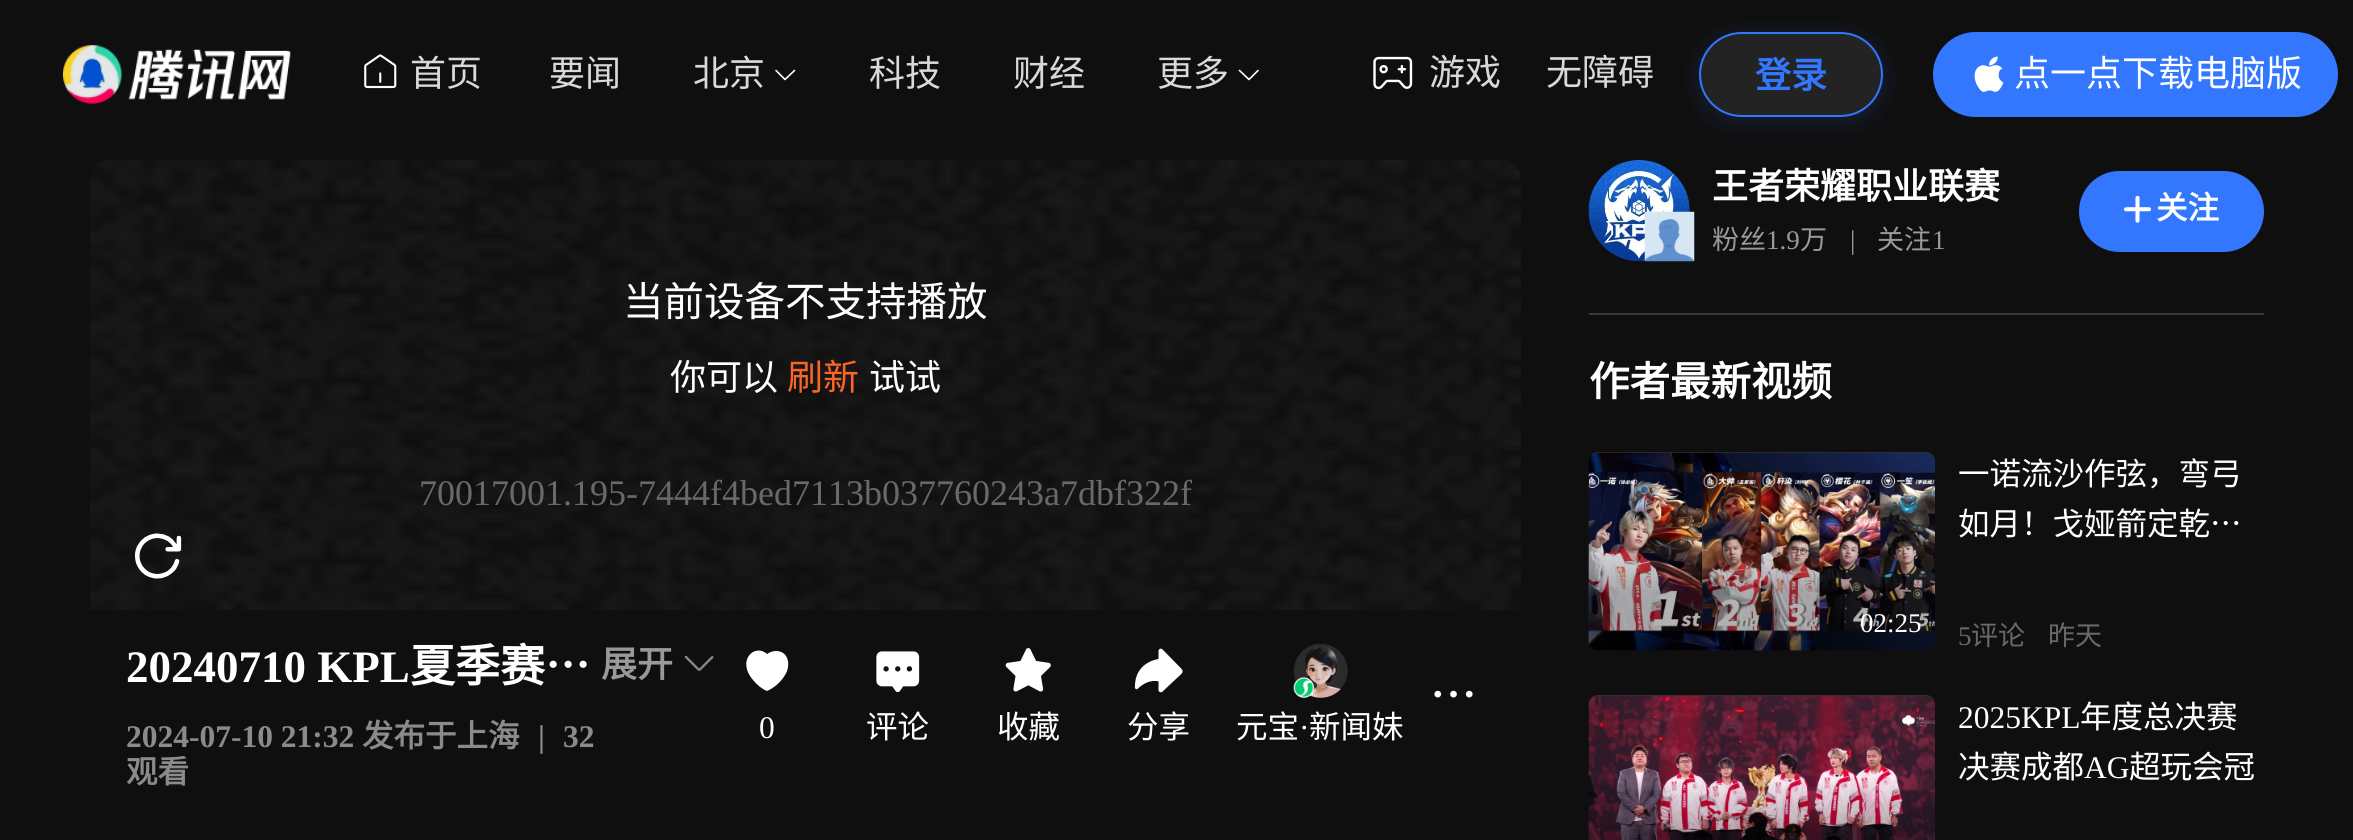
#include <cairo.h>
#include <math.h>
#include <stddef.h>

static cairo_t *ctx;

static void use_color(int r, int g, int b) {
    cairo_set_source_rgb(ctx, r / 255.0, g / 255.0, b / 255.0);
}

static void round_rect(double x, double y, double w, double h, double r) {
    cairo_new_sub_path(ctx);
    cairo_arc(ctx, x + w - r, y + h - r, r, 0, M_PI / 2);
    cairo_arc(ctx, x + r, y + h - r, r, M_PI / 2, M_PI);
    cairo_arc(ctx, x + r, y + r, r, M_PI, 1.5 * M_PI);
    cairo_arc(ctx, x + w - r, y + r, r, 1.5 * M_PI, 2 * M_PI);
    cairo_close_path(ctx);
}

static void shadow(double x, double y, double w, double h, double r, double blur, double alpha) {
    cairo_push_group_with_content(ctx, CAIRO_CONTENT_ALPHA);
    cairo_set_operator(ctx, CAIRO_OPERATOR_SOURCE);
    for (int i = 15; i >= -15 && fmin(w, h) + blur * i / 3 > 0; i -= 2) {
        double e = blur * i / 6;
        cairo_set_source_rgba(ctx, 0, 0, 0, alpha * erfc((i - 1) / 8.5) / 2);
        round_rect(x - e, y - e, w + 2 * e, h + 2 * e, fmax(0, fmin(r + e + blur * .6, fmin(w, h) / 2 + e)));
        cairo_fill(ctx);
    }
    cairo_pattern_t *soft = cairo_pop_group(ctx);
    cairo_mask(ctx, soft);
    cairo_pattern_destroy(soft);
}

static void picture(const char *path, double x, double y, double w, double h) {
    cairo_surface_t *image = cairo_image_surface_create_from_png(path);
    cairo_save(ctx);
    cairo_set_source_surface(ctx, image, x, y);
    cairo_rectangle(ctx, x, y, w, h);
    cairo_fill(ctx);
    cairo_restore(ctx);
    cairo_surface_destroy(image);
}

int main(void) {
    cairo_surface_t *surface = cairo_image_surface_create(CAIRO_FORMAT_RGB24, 2353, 840);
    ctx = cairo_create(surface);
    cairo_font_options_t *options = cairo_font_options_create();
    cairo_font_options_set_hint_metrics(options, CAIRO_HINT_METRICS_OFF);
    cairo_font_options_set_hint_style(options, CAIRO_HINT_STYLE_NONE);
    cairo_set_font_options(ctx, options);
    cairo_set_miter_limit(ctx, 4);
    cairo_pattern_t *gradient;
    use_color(15, 15, 15);
    cairo_paint(ctx);
    picture("img1.png", 63, 45, 228, 59);
    picture("img2.png", 364, 54, 33, 35);
    cairo_select_font_face(ctx, "Noto Sans CJK SC", CAIRO_FONT_SLANT_NORMAL, CAIRO_FONT_WEIGHT_NORMAL);
    cairo_set_font_size(ctx, 36);
    use_color(217, 217, 217);
    cairo_move_to(ctx, 410, 86);
    cairo_show_text(ctx, "首页");
    cairo_move_to(ctx, 549, 86);
    cairo_show_text(ctx, "要闻");
    cairo_move_to(ctx, 693, 86);
    cairo_show_text(ctx, "北京");
    cairo_new_path(ctx);
    cairo_move_to(ctx, 794.5, 70.5);
    cairo_line_to(ctx, 785, 79.5);
    cairo_line_to(ctx, 776, 70.5);
    use_color(255, 255, 255);
    cairo_set_line_width(ctx, 1.6);
    cairo_set_line_cap(ctx, CAIRO_LINE_CAP_ROUND);
    cairo_set_line_join(ctx, CAIRO_LINE_JOIN_ROUND);
    cairo_stroke(ctx);
    use_color(217, 217, 217);
    cairo_move_to(ctx, 869, 86);
    cairo_show_text(ctx, "科技");
    cairo_move_to(ctx, 1013, 86);
    cairo_show_text(ctx, "财经");
    cairo_move_to(ctx, 1157, 86);
    cairo_show_text(ctx, "更多");
    cairo_new_path(ctx);
    cairo_move_to(ctx, 1258, 70.5);
    cairo_line_to(ctx, 1249, 79.5);
    cairo_line_to(ctx, 1239.5, 70.5);
    use_color(255, 255, 255);
    cairo_stroke(ctx);
    picture("img3.png", 1373, 56, 40, 34);
    use_color(217, 217, 217);
    cairo_move_to(ctx, 1429, 85);
    cairo_show_text(ctx, "游戏");
    cairo_move_to(ctx, 1546, 85);
    cairo_show_text(ctx, "无障碍");
    cairo_save(ctx);
    cairo_set_fill_rule(ctx, CAIRO_FILL_RULE_EVEN_ODD);
    cairo_new_path(ctx);
    cairo_move_to(ctx, 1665, 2);
    cairo_line_to(ctx, 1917, 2);
    cairo_line_to(ctx, 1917, 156);
    cairo_line_to(ctx, 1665, 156);
    cairo_close_path(ctx);
    cairo_move_to(ctx, 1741.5, 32);
    cairo_line_to(ctx, 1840.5, 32);
    cairo_curve_to(ctx, 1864, 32, 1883, 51, 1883, 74.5);
    cairo_curve_to(ctx, 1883, 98, 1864, 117, 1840.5, 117);
    cairo_line_to(ctx, 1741.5, 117);
    cairo_curve_to(ctx, 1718, 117, 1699, 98, 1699, 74.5);
    cairo_curve_to(ctx, 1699, 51, 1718, 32, 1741.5, 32);
    cairo_close_path(ctx);
    cairo_clip(ctx);
    use_color(51, 119, 255);
    shadow(1699, 36, 184, 86, 43, 11, 0.16);
    cairo_restore(ctx);
    cairo_set_source_rgba(ctx, 0.851, 0.851, 0.851, 0.1);
    round_rect(1700, 33, 182, 83, 41.5);
    cairo_fill_preserve(ctx);
    use_color(51, 119, 255);
    cairo_set_line_width(ctx, 2);
    cairo_set_line_cap(ctx, CAIRO_LINE_CAP_BUTT);
    cairo_set_line_join(ctx, CAIRO_LINE_JOIN_MITER);
    cairo_stroke(ctx);
    cairo_select_font_face(ctx, "Noto Sans CJK SC", CAIRO_FONT_SLANT_NORMAL, CAIRO_FONT_WEIGHT_BOLD);
    cairo_move_to(ctx, 1755, 88);
    cairo_show_text(ctx, "登录");
    round_rect(1933, 32, 405, 85, 42.5);
    cairo_fill(ctx);
    picture("img4.png", 1974, 56, 30, 36);
    cairo_select_font_face(ctx, "Noto Sans CJK SC", CAIRO_FONT_SLANT_NORMAL, CAIRO_FONT_WEIGHT_NORMAL);
    use_color(255, 255, 255);
    cairo_move_to(ctx, 2014, 86);
    cairo_show_text(ctx, "点一点下载电脑版");
    picture("img5.png", 90, 160, 1431, 450);
    cairo_set_font_size(ctx, 40.5);
    cairo_move_to(ctx, 623, 316);
    cairo_show_text(ctx, "当前设备不支持播放");
    cairo_set_font_size(ctx, 36);
    cairo_move_to(ctx, 670, 390);
    cairo_show_text(ctx, "你可以");
    use_color(252, 101, 38);
    cairo_move_to(ctx, 787, 390);
    cairo_show_text(ctx, "刷新");
    use_color(255, 255, 255);
    cairo_move_to(ctx, 869, 390);
    cairo_show_text(ctx, "试试");
    cairo_select_font_face(ctx, "Liberation Serif", CAIRO_FONT_SLANT_NORMAL, CAIRO_FONT_WEIGHT_NORMAL);
    use_color(105, 105, 105);
    cairo_move_to(ctx, 419, 505);
    cairo_show_text(ctx, "70017001.195-7444f4bed7113b037760243a7dbf322f");
    cairo_select_font_face(ctx, "Liberation Serif", CAIRO_FONT_SLANT_NORMAL, CAIRO_FONT_WEIGHT_BOLD);
    cairo_set_font_size(ctx, 45);
    use_color(255, 255, 255);
    cairo_move_to(ctx, 126, 682);
    cairo_show_text(ctx, "20240710 KPL");
    cairo_select_font_face(ctx, "Noto Sans CJK SC", CAIRO_FONT_SLANT_NORMAL, CAIRO_FONT_WEIGHT_BOLD);
    cairo_move_to(ctx, 410, 682);
    cairo_show_text(ctx, "夏季赛…");
    cairo_set_font_size(ctx, 36);
    use_color(153, 153, 153);
    cairo_move_to(ctx, 601, 677);
    cairo_show_text(ctx, "展开");
    picture("img6.png", 684, 655, 30, 16);
    cairo_select_font_face(ctx, "Liberation Serif", CAIRO_FONT_SLANT_NORMAL, CAIRO_FONT_WEIGHT_BOLD);
    cairo_set_font_size(ctx, 31.5);
    use_color(139, 139, 139);
    cairo_move_to(ctx, 126, 747);
    cairo_show_text(ctx, "2024-07-10 21:32");
    cairo_select_font_face(ctx, "Noto Sans CJK SC", CAIRO_FONT_SLANT_NORMAL, CAIRO_FONT_WEIGHT_BOLD);
    cairo_move_to(ctx, 362, 747);
    cairo_show_text(ctx, "发布于上海");
    cairo_select_font_face(ctx, "Liberation Serif", CAIRO_FONT_SLANT_NORMAL, CAIRO_FONT_WEIGHT_BOLD);
    cairo_move_to(ctx, 538, 747);
    cairo_show_text(ctx, "|");
    cairo_move_to(ctx, 563, 747);
    cairo_show_text(ctx, "32");
    cairo_select_font_face(ctx, "Noto Sans CJK SC", CAIRO_FONT_SLANT_NORMAL, CAIRO_FONT_WEIGHT_BOLD);
    cairo_move_to(ctx, 126, 783);
    cairo_show_text(ctx, "观看");
    picture("img7.png", 1434, 690, 39, 8);
    use_color(255, 255, 255);
    cairo_new_path(ctx);
    cairo_move_to(ctx, 776, 651);
    cairo_curve_to(ctx, 773, 651, 770, 652, 767, 654);
    cairo_curve_to(ctx, 755, 643, 736, 660, 753, 680);
    cairo_curve_to(ctx, 757, 685, 762, 689, 767, 691);
    cairo_curve_to(ctx, 774, 688, 781, 682, 785, 675);
    cairo_curve_to(ctx, 791, 666, 789, 651, 776, 651);
    cairo_close_path(ctx);
    cairo_fill(ctx);
    cairo_select_font_face(ctx, "Liberation Serif", CAIRO_FONT_SLANT_NORMAL, CAIRO_FONT_WEIGHT_NORMAL);
    cairo_move_to(ctx, 759, 738);
    cairo_show_text(ctx, "0");
    picture("img8.png", 876, 651, 44, 42);
    cairo_select_font_face(ctx, "Noto Sans CJK SC", CAIRO_FONT_SLANT_NORMAL, CAIRO_FONT_WEIGHT_NORMAL);
    cairo_move_to(ctx, 866, 738);
    cairo_show_text(ctx, "评论");
    picture("img9.png", 1005, 648, 46, 44);
    cairo_move_to(ctx, 997, 738);
    cairo_show_text(ctx, "收藏");
    picture("img10.png", 1134, 648, 49, 45);
    cairo_move_to(ctx, 1127, 738);
    cairo_show_text(ctx, "分享");
    picture("img11.png", 1293, 643, 55, 55);
    picture("img12.png", 1293, 677, 21, 21);
    cairo_move_to(ctx, 1236, 738);
    cairo_show_text(ctx, "元宝");
    cairo_select_font_face(ctx, "Liberation Serif", CAIRO_FONT_SLANT_NORMAL, CAIRO_FONT_WEIGHT_NORMAL);
    cairo_move_to(ctx, 1299, 738);
    cairo_show_text(ctx, "·");
    cairo_select_font_face(ctx, "Noto Sans CJK SC", CAIRO_FONT_SLANT_NORMAL, CAIRO_FONT_WEIGHT_NORMAL);
    cairo_move_to(ctx, 1309, 738);
    cairo_show_text(ctx, "新闻妹");
    picture("img13.png", 1588, 160, 102, 102);
    picture("img14.png", 1644, 211, 51, 51);
    cairo_select_font_face(ctx, "Noto Sans CJK SC", CAIRO_FONT_SLANT_NORMAL, CAIRO_FONT_WEIGHT_BOLD);
    cairo_set_font_size(ctx, 36);
    cairo_move_to(ctx, 1712, 199);
    cairo_show_text(ctx, "王者荣耀职业联赛");
    cairo_select_font_face(ctx, "Noto Sans CJK SC", CAIRO_FONT_SLANT_NORMAL, CAIRO_FONT_WEIGHT_NORMAL);
    cairo_set_font_size(ctx, 27);
    use_color(153, 153, 153);
    cairo_move_to(ctx, 1712, 249);
    cairo_show_text(ctx, "粉丝");
    cairo_select_font_face(ctx, "Liberation Serif", CAIRO_FONT_SLANT_NORMAL, CAIRO_FONT_WEIGHT_NORMAL);
    cairo_move_to(ctx, 1766, 249);
    cairo_show_text(ctx, "1.9");
    cairo_select_font_face(ctx, "Noto Sans CJK SC", CAIRO_FONT_SLANT_NORMAL, CAIRO_FONT_WEIGHT_NORMAL);
    cairo_move_to(ctx, 1800, 249);
    cairo_show_text(ctx, "万");
    cairo_select_font_face(ctx, "Liberation Serif", CAIRO_FONT_SLANT_NORMAL, CAIRO_FONT_WEIGHT_NORMAL);
    cairo_move_to(ctx, 1850, 249);
    cairo_show_text(ctx, "|");
    cairo_select_font_face(ctx, "Noto Sans CJK SC", CAIRO_FONT_SLANT_NORMAL, CAIRO_FONT_WEIGHT_NORMAL);
    cairo_move_to(ctx, 1877, 249);
    cairo_show_text(ctx, "关注");
    cairo_select_font_face(ctx, "Liberation Serif", CAIRO_FONT_SLANT_NORMAL, CAIRO_FONT_WEIGHT_NORMAL);
    cairo_move_to(ctx, 1932, 249);
    cairo_show_text(ctx, "1");
    use_color(51, 119, 255);
    round_rect(2079, 171, 185, 81, 40.5);
    cairo_fill(ctx);
    picture("img15.png", 2124, 196, 27, 27);
    cairo_select_font_face(ctx, "Noto Sans CJK SC", CAIRO_FONT_SLANT_NORMAL, CAIRO_FONT_WEIGHT_BOLD);
    cairo_set_font_size(ctx, 31.5);
    use_color(255, 255, 255);
    cairo_move_to(ctx, 2156, 219);
    cairo_show_text(ctx, "关注");
    use_color(56, 56, 56);
    cairo_rectangle(ctx, 1589, 313, 675, 2);
    cairo_fill(ctx);
    cairo_set_font_size(ctx, 40.5);
    use_color(255, 255, 255);
    cairo_move_to(ctx, 1589, 396);
    cairo_show_text(ctx, "作者最新视频");
    use_color(51, 51, 51);
    round_rect(1589, 452, 346, 198, 9);
    cairo_fill(ctx);
    picture("img16.png", 1588, 452, 347, 199);
    gradient = cairo_pattern_create_linear(1762, 650, 1762, 452);
    cairo_pattern_add_color_stop_rgba(gradient, 0.3, 0, 0, 0, 0.3);
    cairo_pattern_add_color_stop_rgba(gradient, 0.6, 0, 0, 0, 0);
    cairo_set_source(ctx, gradient);
    cairo_pattern_destroy(gradient);
    round_rect(1589, 452, 346, 198, 9);
    cairo_fill(ctx);
    cairo_select_font_face(ctx, "Liberation Serif", CAIRO_FONT_SLANT_NORMAL, CAIRO_FONT_WEIGHT_NORMAL);
    cairo_set_font_size(ctx, 27);
    use_color(255, 255, 255);
    cairo_move_to(ctx, 1860, 632);
    cairo_show_text(ctx, "02:25");
    cairo_select_font_face(ctx, "Noto Sans CJK SC", CAIRO_FONT_SLANT_NORMAL, CAIRO_FONT_WEIGHT_NORMAL);
    cairo_set_font_size(ctx, 31.5);
    cairo_move_to(ctx, 1958, 485);
    cairo_show_text(ctx, "一诺流沙作弦，弯弓");
    cairo_move_to(ctx, 1958, 535);
    cairo_show_text(ctx, "如月！戈娅箭定乾…");
    cairo_select_font_face(ctx, "Liberation Serif", CAIRO_FONT_SLANT_NORMAL, CAIRO_FONT_WEIGHT_NORMAL);
    cairo_set_font_size(ctx, 27);
    use_color(105, 105, 105);
    cairo_move_to(ctx, 1958, 645);
    cairo_show_text(ctx, "5");
    cairo_select_font_face(ctx, "Noto Sans CJK SC", CAIRO_FONT_SLANT_NORMAL, CAIRO_FONT_WEIGHT_NORMAL);
    cairo_move_to(ctx, 1971, 645);
    cairo_show_text(ctx, "评论");
    cairo_move_to(ctx, 2048, 645);
    cairo_show_text(ctx, "昨天");
    use_color(51, 51, 51);
    round_rect(1589, 695, 346, 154, 9);
    cairo_fill(ctx);
    picture("img17.png", 1588, 695, 347, 145);
    gradient = cairo_pattern_create_linear(1762, 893, 1762, 695);
    cairo_pattern_add_color_stop_rgba(gradient, 0.3, 0, 0, 0, 0.3);
    cairo_pattern_add_color_stop_rgba(gradient, 0.6, 0, 0, 0, 0);
    cairo_set_source(ctx, gradient);
    cairo_pattern_destroy(gradient);
    cairo_rectangle(ctx, 1589, 778, 346, 62);
    cairo_fill(ctx);
    cairo_select_font_face(ctx, "Liberation Serif", CAIRO_FONT_SLANT_NORMAL, CAIRO_FONT_WEIGHT_NORMAL);
    cairo_set_font_size(ctx, 31.5);
    use_color(255, 255, 255);
    cairo_move_to(ctx, 1958, 728);
    cairo_show_text(ctx, "2025KPL");
    cairo_select_font_face(ctx, "Noto Sans CJK SC", CAIRO_FONT_SLANT_NORMAL, CAIRO_FONT_WEIGHT_NORMAL);
    cairo_move_to(ctx, 2080, 728);
    cairo_show_text(ctx, "年度总决赛");
    cairo_move_to(ctx, 1958, 778);
    cairo_show_text(ctx, "决赛成都");
    cairo_select_font_face(ctx, "Liberation Serif", CAIRO_FONT_SLANT_NORMAL, CAIRO_FONT_WEIGHT_NORMAL);
    cairo_move_to(ctx, 2084, 778);
    cairo_show_text(ctx, "AG");
    cairo_select_font_face(ctx, "Noto Sans CJK SC", CAIRO_FONT_SLANT_NORMAL, CAIRO_FONT_WEIGHT_NORMAL);
    cairo_move_to(ctx, 2129, 778);
    cairo_show_text(ctx, "超玩会冠");
    cairo_surface_write_to_png(surface, "result.png");
    cairo_font_options_destroy(options);
    cairo_destroy(ctx);
    cairo_surface_destroy(surface);
    return 0;
}
